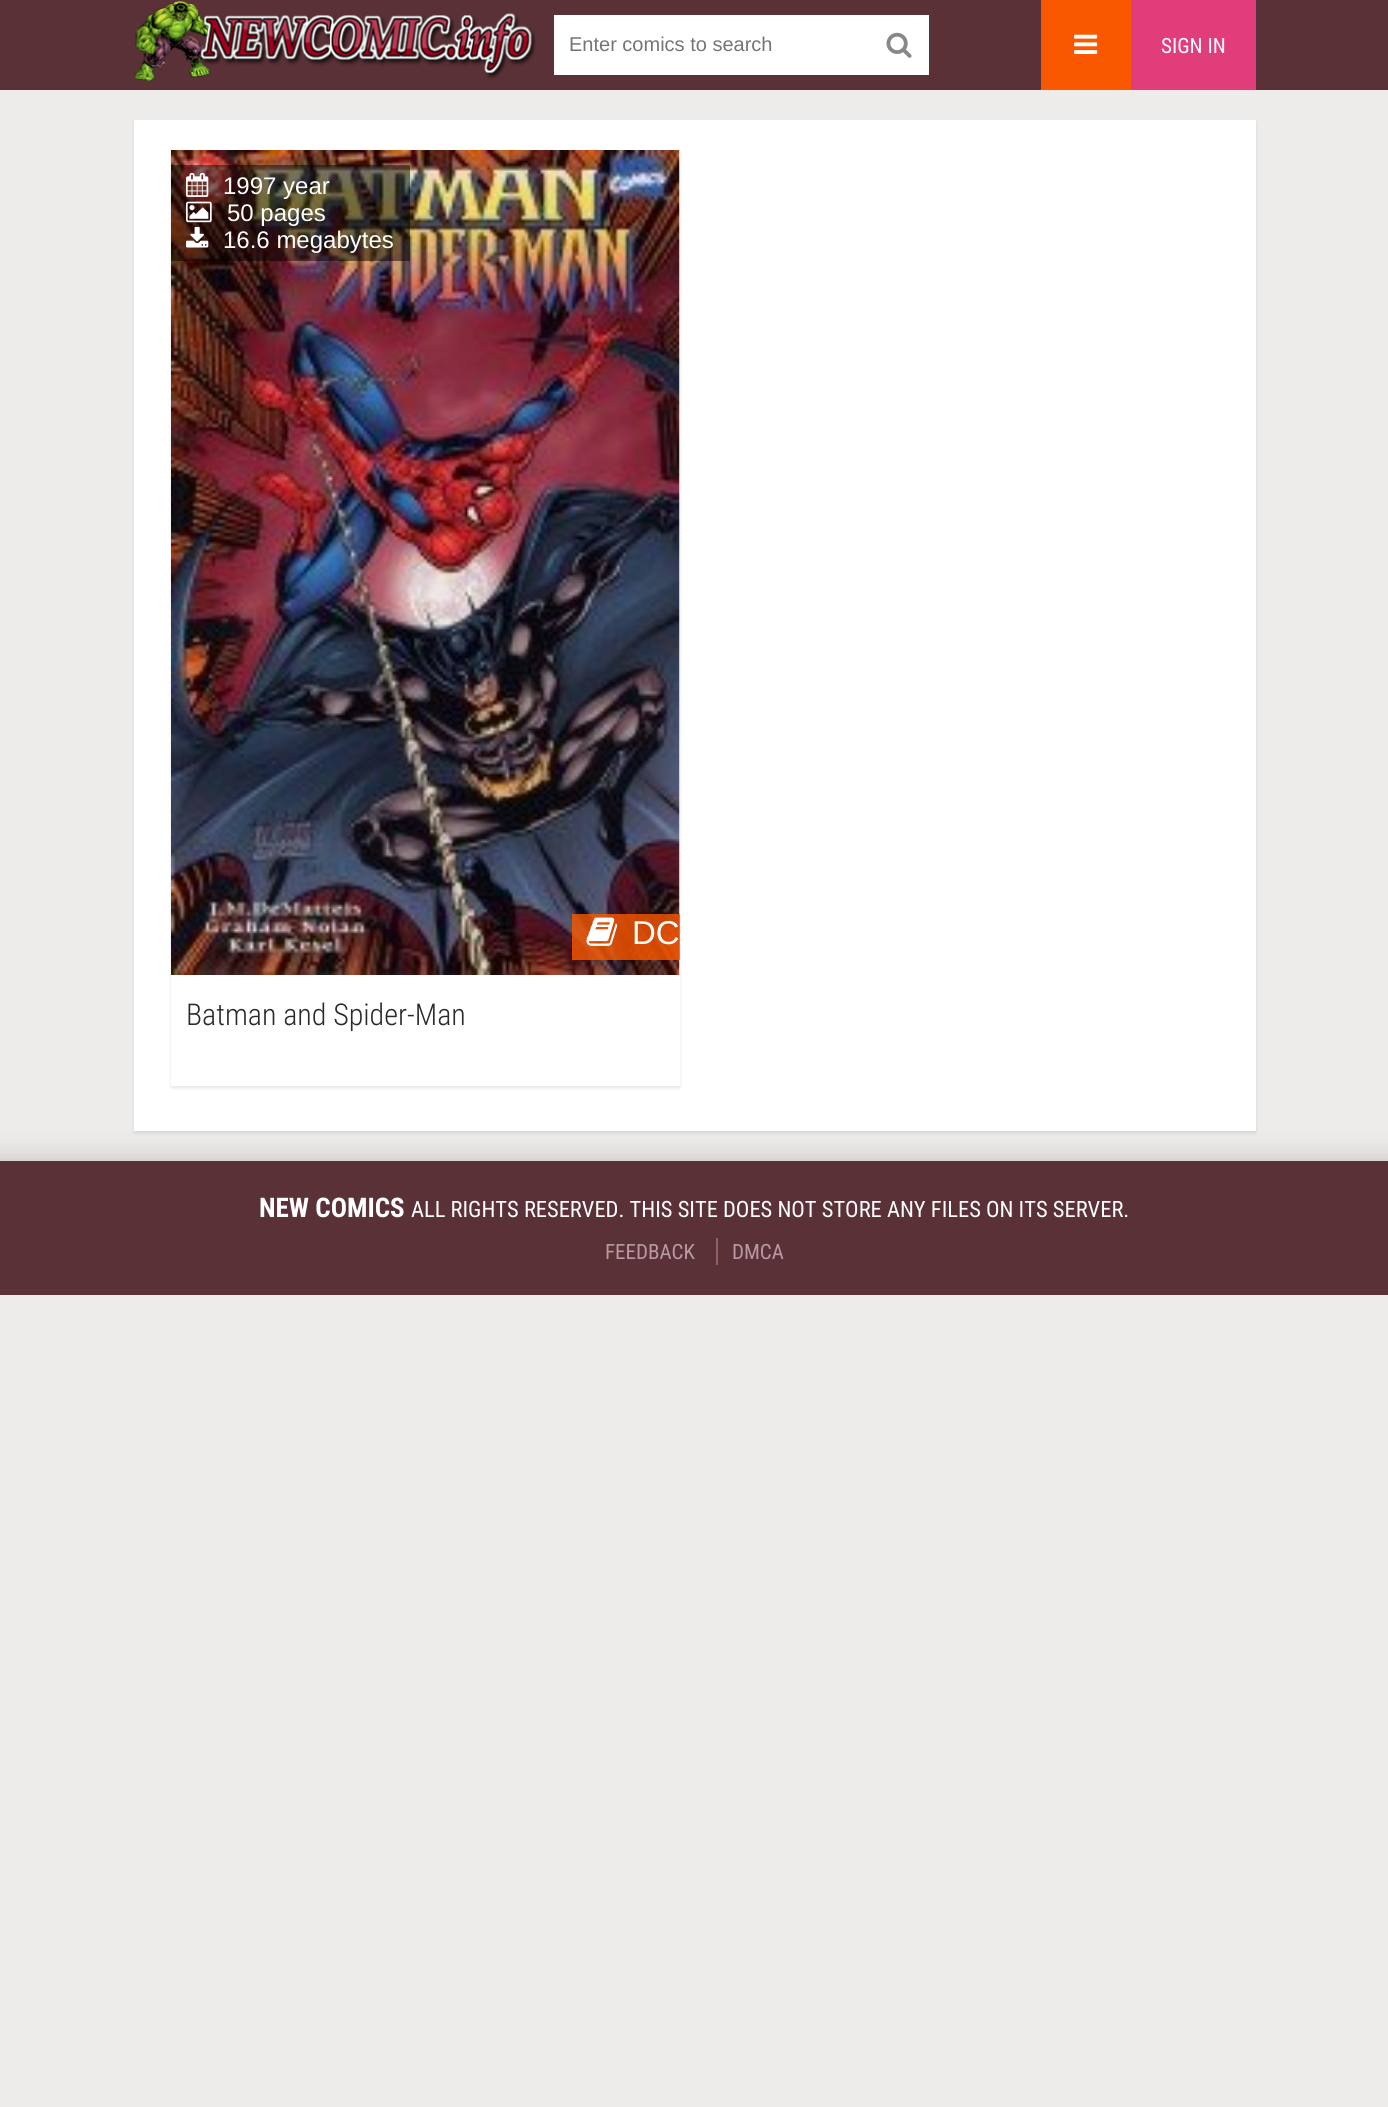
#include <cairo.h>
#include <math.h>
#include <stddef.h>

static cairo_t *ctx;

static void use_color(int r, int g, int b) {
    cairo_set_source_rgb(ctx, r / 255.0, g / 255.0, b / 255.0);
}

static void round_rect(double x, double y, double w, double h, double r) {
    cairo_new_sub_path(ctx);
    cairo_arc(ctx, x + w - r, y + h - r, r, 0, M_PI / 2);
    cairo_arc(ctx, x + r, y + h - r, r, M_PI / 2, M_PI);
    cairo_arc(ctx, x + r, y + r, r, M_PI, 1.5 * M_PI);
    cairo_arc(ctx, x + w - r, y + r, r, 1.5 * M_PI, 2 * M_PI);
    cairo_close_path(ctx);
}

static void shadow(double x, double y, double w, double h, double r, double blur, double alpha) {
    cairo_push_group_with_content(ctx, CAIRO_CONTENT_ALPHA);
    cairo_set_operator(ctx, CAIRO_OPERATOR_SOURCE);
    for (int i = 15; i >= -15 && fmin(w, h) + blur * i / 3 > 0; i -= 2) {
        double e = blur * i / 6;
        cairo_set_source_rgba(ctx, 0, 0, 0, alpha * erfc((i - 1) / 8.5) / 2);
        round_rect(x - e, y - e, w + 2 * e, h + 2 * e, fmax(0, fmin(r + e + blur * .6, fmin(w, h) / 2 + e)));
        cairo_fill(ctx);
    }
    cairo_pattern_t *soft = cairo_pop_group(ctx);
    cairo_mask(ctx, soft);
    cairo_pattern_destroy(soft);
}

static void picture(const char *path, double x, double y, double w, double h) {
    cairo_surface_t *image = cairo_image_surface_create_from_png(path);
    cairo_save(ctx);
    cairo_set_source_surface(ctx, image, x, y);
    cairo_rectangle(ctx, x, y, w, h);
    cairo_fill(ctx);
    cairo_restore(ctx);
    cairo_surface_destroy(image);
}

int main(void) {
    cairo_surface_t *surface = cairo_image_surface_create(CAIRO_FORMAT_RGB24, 1388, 2107);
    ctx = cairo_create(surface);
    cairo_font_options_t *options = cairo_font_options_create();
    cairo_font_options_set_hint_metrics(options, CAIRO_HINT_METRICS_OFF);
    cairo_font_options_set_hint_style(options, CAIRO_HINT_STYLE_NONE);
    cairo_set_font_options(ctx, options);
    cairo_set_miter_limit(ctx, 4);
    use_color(238, 235, 235);
    cairo_paint(ctx);
    use_color(89, 49, 54);
    cairo_rectangle(ctx, 0, 0, 1388, 90);
    cairo_fill(ctx);
    picture("img1.png", 134, 1, 402, 80);
    use_color(255, 255, 255);
    cairo_rectangle(ctx, 554, 15, 375, 60);
    cairo_fill(ctx);
    cairo_select_font_face(ctx, "Liberation Sans", CAIRO_FONT_SLANT_NORMAL, CAIRO_FONT_WEIGHT_NORMAL);
    cairo_set_font_size(ctx, 20);
    use_color(117, 117, 117);
    cairo_move_to(ctx, 569, 51);
    cairo_show_text(ctx, "Enter comics to search");
    picture("img2.png", 886, 32, 26, 26);
    use_color(250, 88, 0);
    cairo_rectangle(ctx, 1041, 0, 90, 90);
    cairo_fill(ctx);
    picture("img3.png", 1074, 34, 24, 20);
    use_color(225, 61, 122);
    cairo_rectangle(ctx, 1131, 0, 125, 90);
    cairo_fill(ctx);
    cairo_select_font_face(ctx, "Roboto Condensed", CAIRO_FONT_SLANT_NORMAL, CAIRO_FONT_WEIGHT_NORMAL);
    cairo_set_font_size(ctx, 21);
    use_color(255, 255, 255);
    cairo_move_to(ctx, 1161, 53);
    cairo_show_text(ctx, "SIGN IN");
    use_color(0, 0, 0);
    shadow(134, 122, 1122, 1011, 0, 1.5, 0.1);
    use_color(255, 255, 255);
    cairo_rectangle(ctx, 134, 120, 1122, 1011);
    cairo_fill(ctx);
    use_color(0, 0, 0);
    shadow(171, 152, 509, 936, 0, 1.5, 0.1);
    use_color(255, 255, 255);
    cairo_rectangle(ctx, 171, 150, 509, 936);
    cairo_fill(ctx);
    picture("img4.png", 171, 150, 509, 825);
    cairo_set_source_rgba(ctx, 0, 0, 0, 0.5);
    cairo_rectangle(ctx, 171, 165, 239, 96);
    cairo_fill(ctx);
    picture("img5.png", 186, 172, 23, 25);
    cairo_select_font_face(ctx, "Liberation Sans", CAIRO_FONT_SLANT_NORMAL, CAIRO_FONT_WEIGHT_NORMAL);
    cairo_set_font_size(ctx, 24);
    use_color(255, 255, 255);
    cairo_move_to(ctx, 223, 194);
    cairo_show_text(ctx, "1997 year");
    picture("img6.png", 186, 201, 26, 22);
    cairo_move_to(ctx, 227, 221);
    cairo_show_text(ctx, "50 pages");
    picture("img7.png", 186, 226, 23, 22);
    cairo_move_to(ctx, 223, 248);
    cairo_show_text(ctx, "16.6 megabytes");
    cairo_set_source_rgba(ctx, 0.98, 0.345, 0, 0.8);
    cairo_rectangle(ctx, 572, 914, 108, 46);
    cairo_fill(ctx);
    picture("img8.png", 586, 917, 32, 29);
    cairo_set_font_size(ctx, 33);
    use_color(255, 255, 255);
    cairo_move_to(ctx, 632, 944);
    cairo_show_text(ctx, "DC");
    cairo_select_font_face(ctx, "Roboto Condensed Light", CAIRO_FONT_SLANT_NORMAL, CAIRO_FONT_WEIGHT_NORMAL);
    cairo_set_font_size(ctx, 30);
    use_color(42, 42, 42);
    cairo_move_to(ctx, 186, 1025);
    cairo_show_text(ctx, "Batman and Spider-Man");
    use_color(0, 0, 0);
    shadow(-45, 1161, 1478, 74, 0, 15, 0.2);
    use_color(89, 49, 54);
    cairo_rectangle(ctx, 0, 1161, 1388, 134);
    cairo_fill(ctx);
    cairo_select_font_face(ctx, "Roboto Condensed", CAIRO_FONT_SLANT_NORMAL, CAIRO_FONT_WEIGHT_BOLD);
    cairo_set_font_size(ctx, 27);
    use_color(255, 255, 255);
    cairo_move_to(ctx, 259, 1217);
    cairo_show_text(ctx, "NEW COMICS");
    cairo_select_font_face(ctx, "Roboto Condensed", CAIRO_FONT_SLANT_NORMAL, CAIRO_FONT_WEIGHT_NORMAL);
    cairo_set_font_size(ctx, 22.5);
    cairo_move_to(ctx, 411, 1217);
    cairo_show_text(ctx, "ALL RIGHTS RESERVED. THIS SITE DOES NOT STORE ANY FILES ON ITS SERVER.");
    cairo_set_font_size(ctx, 21);
    use_color(183, 154, 164);
    cairo_move_to(ctx, 605, 1259);
    cairo_show_text(ctx, "FEEDBACK");
    use_color(134, 99, 111);
    cairo_rectangle(ctx, 716, 1238, 2, 27);
    cairo_fill(ctx);
    use_color(183, 154, 164);
    cairo_move_to(ctx, 732, 1259);
    cairo_show_text(ctx, "DMCA");
    cairo_surface_write_to_png(surface, "result.png");
    cairo_font_options_destroy(options);
    cairo_destroy(ctx);
    cairo_surface_destroy(surface);
    return 0;
}
